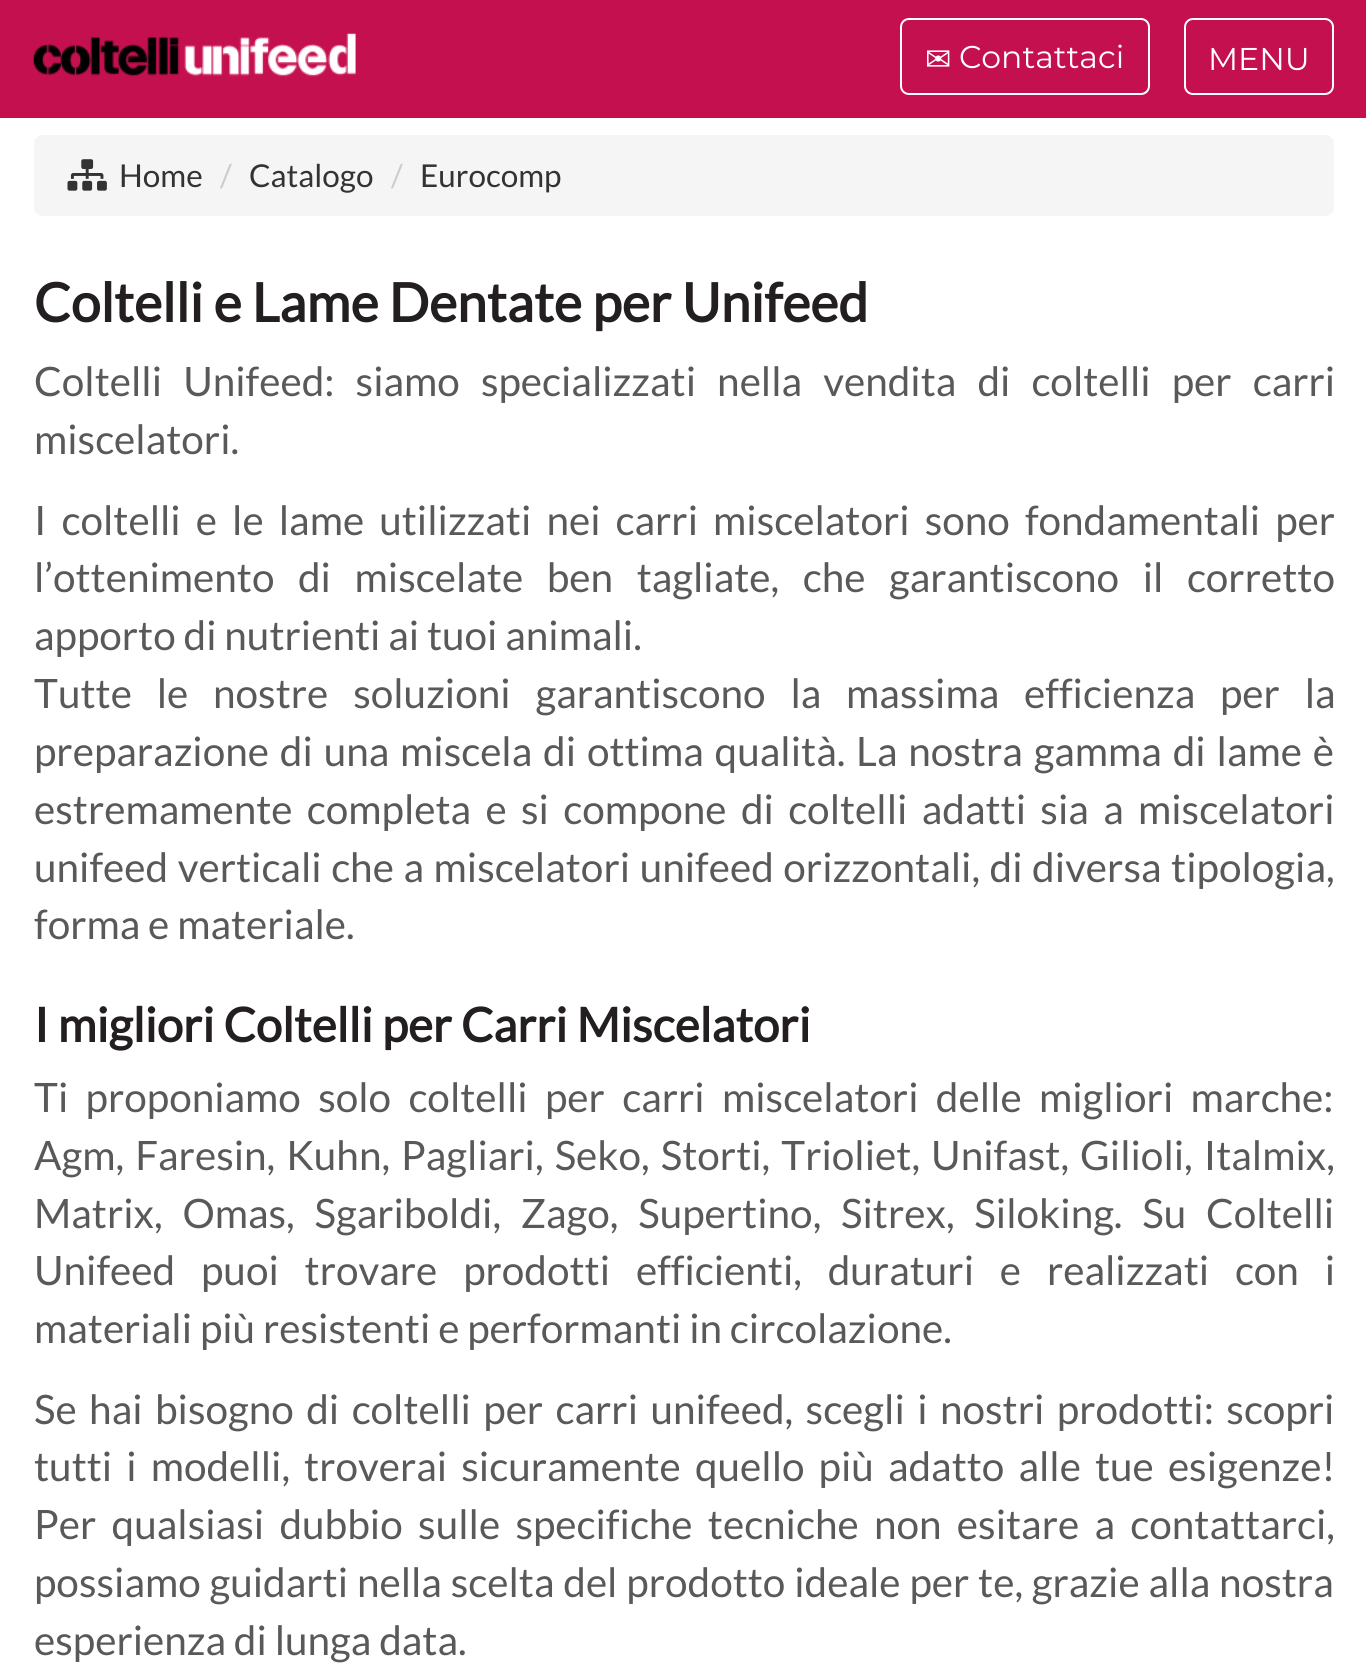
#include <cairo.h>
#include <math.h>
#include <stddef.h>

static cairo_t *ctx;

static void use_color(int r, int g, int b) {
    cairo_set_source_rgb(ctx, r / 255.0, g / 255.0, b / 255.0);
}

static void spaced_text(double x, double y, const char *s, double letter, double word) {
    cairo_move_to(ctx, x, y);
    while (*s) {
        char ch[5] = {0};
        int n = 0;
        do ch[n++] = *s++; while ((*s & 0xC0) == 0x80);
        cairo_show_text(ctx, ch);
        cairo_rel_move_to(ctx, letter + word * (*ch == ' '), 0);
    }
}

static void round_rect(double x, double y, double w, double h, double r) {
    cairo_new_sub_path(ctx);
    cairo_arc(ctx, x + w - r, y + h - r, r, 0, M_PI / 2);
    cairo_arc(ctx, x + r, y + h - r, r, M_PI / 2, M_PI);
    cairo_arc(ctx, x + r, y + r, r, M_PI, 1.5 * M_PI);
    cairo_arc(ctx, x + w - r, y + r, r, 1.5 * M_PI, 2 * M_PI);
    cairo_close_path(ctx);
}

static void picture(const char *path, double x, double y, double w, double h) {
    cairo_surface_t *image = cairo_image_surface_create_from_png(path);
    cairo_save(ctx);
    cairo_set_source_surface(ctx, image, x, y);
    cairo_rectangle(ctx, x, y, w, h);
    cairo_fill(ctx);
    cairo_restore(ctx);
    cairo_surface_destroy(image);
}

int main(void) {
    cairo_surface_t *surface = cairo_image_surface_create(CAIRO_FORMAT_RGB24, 1366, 1668);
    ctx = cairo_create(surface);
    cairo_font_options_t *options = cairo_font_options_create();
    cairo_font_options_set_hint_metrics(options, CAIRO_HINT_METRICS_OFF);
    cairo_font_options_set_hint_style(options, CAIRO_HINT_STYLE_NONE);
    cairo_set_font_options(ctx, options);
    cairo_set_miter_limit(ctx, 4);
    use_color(255, 255, 255);
    cairo_paint(ctx);
    use_color(197, 16, 80);
    cairo_rectangle(ctx, 0, 0, 1366, 118);
    cairo_fill(ctx);
    picture("img1.png", 33, 33, 323, 44);
    round_rect(901, 19, 248, 75, 8);
    use_color(255, 255, 255);
    cairo_stroke(ctx);
    cairo_select_font_face(ctx, "DejaVu Sans", CAIRO_FONT_SLANT_NORMAL, CAIRO_FONT_WEIGHT_NORMAL);
    cairo_set_font_size(ctx, 31.5);
    cairo_move_to(ctx, 925, 70);
    cairo_show_text(ctx, "✉");
    cairo_select_font_face(ctx, "Montserrat", CAIRO_FONT_SLANT_NORMAL, CAIRO_FONT_WEIGHT_NORMAL);
    cairo_move_to(ctx, 959, 68);
    cairo_show_text(ctx, "Contattaci");
    round_rect(1185, 19, 148, 75, 8);
    cairo_stroke(ctx);
    cairo_move_to(ctx, 1208, 70);
    cairo_show_text(ctx, "MENU");
    use_color(245, 245, 245);
    round_rect(34, 135, 1300, 81, 9);
    cairo_fill(ctx);
    picture("img2.png", 67, 159, 40, 32);
    cairo_select_font_face(ctx, "Lato", CAIRO_FONT_SLANT_NORMAL, CAIRO_FONT_WEIGHT_NORMAL);
    use_color(51, 51, 51);
    cairo_move_to(ctx, 119, 187);
    cairo_show_text(ctx, "Home");
    use_color(204, 204, 204);
    cairo_move_to(ctx, 220, 187);
    cairo_show_text(ctx, "/");
    use_color(51, 51, 51);
    cairo_move_to(ctx, 249, 187);
    cairo_show_text(ctx, "Catalogo");
    use_color(204, 204, 204);
    cairo_move_to(ctx, 391, 187);
    cairo_show_text(ctx, "/");
    use_color(51, 51, 51);
    cairo_move_to(ctx, 420, 187);
    cairo_show_text(ctx, "Eurocomp");
    cairo_select_font_face(ctx, "Lato", CAIRO_FONT_SLANT_NORMAL, CAIRO_FONT_WEIGHT_BOLD);
    cairo_set_font_size(ctx, 53.5);
    use_color(35, 31, 32);
    cairo_move_to(ctx, 34, 322);
    cairo_show_text(ctx, "Coltelli e Lame Dentate per Unifeed");
    cairo_select_font_face(ctx, "Lato", CAIRO_FONT_SLANT_NORMAL, CAIRO_FONT_WEIGHT_NORMAL);
    cairo_set_font_size(ctx, 40.5);
    use_color(89, 89, 89);
    spaced_text(34, 396, "Coltelli Unifeed: siamo specializzati nella vendita di coltelli per carri", 0, 13.25);
    cairo_move_to(ctx, 34, 454);
    cairo_show_text(ctx, "miscelatori.");
    spaced_text(34, 535, "I coltelli e le lame utilizzati nei carri miscelatori sono fondamentali per", 0, 7.25);
    spaced_text(34, 592, "l’ottenimento di miscelate ben tagliate, che garantiscono il corretto", 0, 15.75);
    cairo_move_to(ctx, 34, 650);
    cairo_show_text(ctx, "apporto di nutrienti ai tuoi animali.");
    spaced_text(34, 708, "Tutte le nostre soluzioni garantiscono la massima efficienza per la", 0, 17);
    spaced_text(34, 766, "preparazione di una miscela di ottima qualità. La nostra gamma di lame è", 0, 3);
    spaced_text(34, 824, "estremamente completa e si compone di coltelli adatti sia a miscelatori", 0, 6.5);
    spaced_text(34, 882, "unifeed verticali che a miscelatori unifeed orizzontali, di diversa tipologia,", 0, 1.75);
    cairo_move_to(ctx, 34, 939);
    cairo_show_text(ctx, "forma e materiale.");
    cairo_select_font_face(ctx, "Lato", CAIRO_FONT_SLANT_NORMAL, CAIRO_FONT_WEIGHT_BOLD);
    cairo_set_font_size(ctx, 47.25);
    use_color(35, 31, 32);
    cairo_move_to(ctx, 34, 1042);
    cairo_show_text(ctx, "I migliori Coltelli per Carri Miscelatori");
    cairo_select_font_face(ctx, "Lato", CAIRO_FONT_SLANT_NORMAL, CAIRO_FONT_WEIGHT_NORMAL);
    cairo_set_font_size(ctx, 40.5);
    use_color(89, 89, 89);
    spaced_text(34, 1112, "Ti proponiamo solo coltelli per carri miscelatori delle migliori marche:", 0, 9.5);
    spaced_text(34, 1170, "Agm, Faresin, Kuhn, Pagliari, Seko, Storti, Trioliet, Unifast, Gilioli, Italmix,", 0, 3.25);
    spaced_text(34, 1228, "Matrix, Omas, Sgariboldi, Zago, Supertino, Sitrex, Siloking. Su Coltelli", 0, 12);
    spaced_text(34, 1285, "Unifeed puoi trovare prodotti efficienti, duraturi e realizzati con i", 0, 18);
    cairo_move_to(ctx, 34, 1343);
    cairo_show_text(ctx, "materiali più resistenti e performanti in circolazione.");
    spaced_text(34, 1424, "Se hai bisogno di coltelli per carri unifeed, scegli i nostri prodotti: scopri", 0, 4.6);
    spaced_text(34, 1481, "tutti i modelli, troverai sicuramente quello più adatto alle tue esigenze!", 0, 6.25);
    spaced_text(34, 1539, "Per qualsiasi dubbio sulle specifiche tecniche non esitare a contattarci,", 0, 7.5);
    spaced_text(34, 1597, "possiamo guidarti nella scelta del prodotto ideale per te, grazie alla nostra", 0, 1);
    cairo_move_to(ctx, 34, 1655);
    cairo_show_text(ctx, "esperienza di lunga data.");
    cairo_surface_write_to_png(surface, "result.png");
    cairo_font_options_destroy(options);
    cairo_destroy(ctx);
    cairo_surface_destroy(surface);
    return 0;
}
